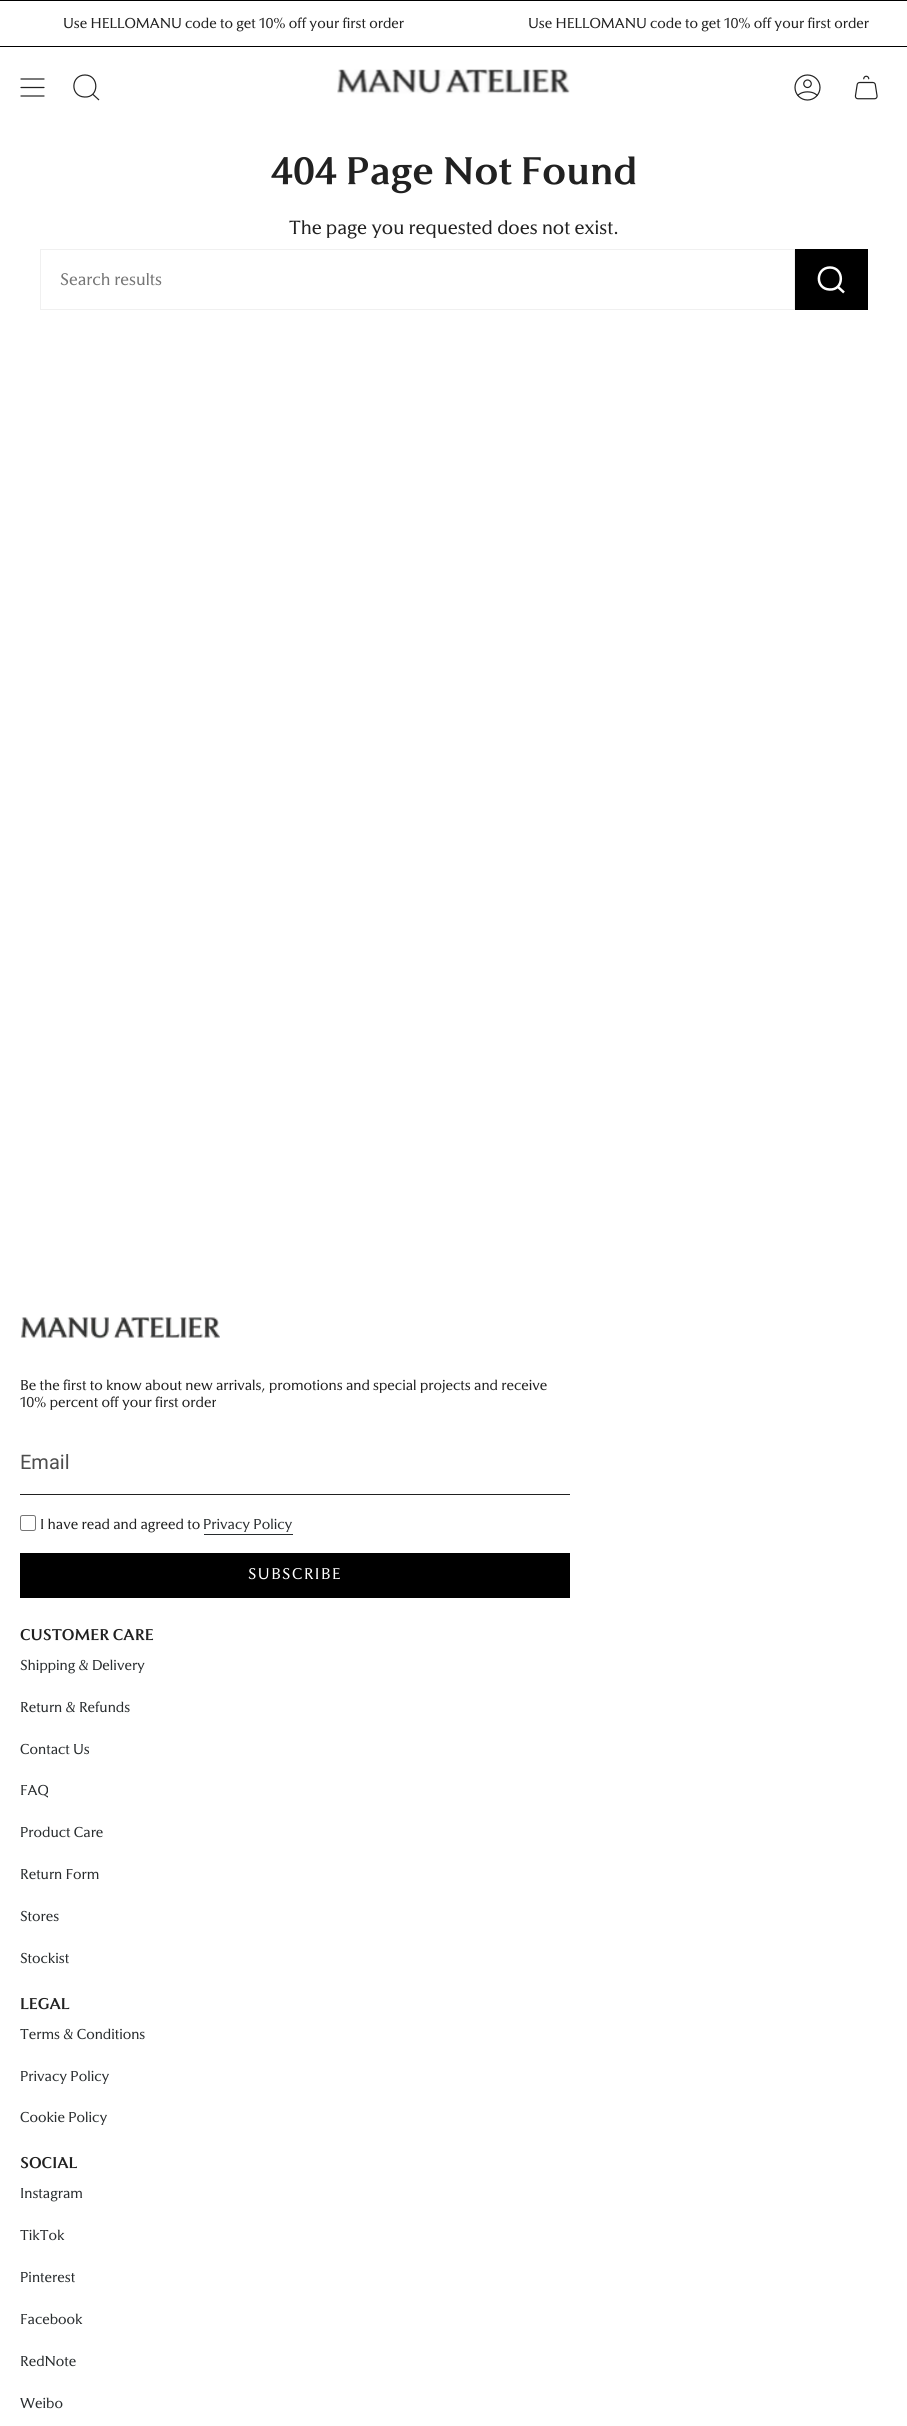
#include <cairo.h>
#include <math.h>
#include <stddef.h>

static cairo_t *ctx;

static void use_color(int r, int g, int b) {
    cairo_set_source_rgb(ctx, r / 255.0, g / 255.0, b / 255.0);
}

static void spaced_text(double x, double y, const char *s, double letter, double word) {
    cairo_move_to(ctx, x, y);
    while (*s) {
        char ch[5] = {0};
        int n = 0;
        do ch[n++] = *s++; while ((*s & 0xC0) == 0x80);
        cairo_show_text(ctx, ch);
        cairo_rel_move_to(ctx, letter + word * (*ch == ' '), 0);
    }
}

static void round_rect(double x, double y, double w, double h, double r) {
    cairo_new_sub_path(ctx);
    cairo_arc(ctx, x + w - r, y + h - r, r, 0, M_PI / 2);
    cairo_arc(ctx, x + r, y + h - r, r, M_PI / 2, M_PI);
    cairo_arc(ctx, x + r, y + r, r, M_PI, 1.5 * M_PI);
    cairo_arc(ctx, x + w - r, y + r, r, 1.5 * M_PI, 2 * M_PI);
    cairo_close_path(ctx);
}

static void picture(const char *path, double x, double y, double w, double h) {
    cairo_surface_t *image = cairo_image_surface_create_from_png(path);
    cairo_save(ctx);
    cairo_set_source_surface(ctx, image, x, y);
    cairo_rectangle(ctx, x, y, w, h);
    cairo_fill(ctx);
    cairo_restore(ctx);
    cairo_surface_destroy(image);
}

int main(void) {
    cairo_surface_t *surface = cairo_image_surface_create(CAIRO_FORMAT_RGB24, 907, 2426);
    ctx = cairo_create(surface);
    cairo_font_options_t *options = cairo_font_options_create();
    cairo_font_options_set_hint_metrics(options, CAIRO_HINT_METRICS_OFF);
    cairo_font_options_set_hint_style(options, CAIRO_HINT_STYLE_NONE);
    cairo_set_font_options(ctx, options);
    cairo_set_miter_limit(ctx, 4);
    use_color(255, 255, 255);
    cairo_paint(ctx);
    use_color(0, 0, 0);
    cairo_rectangle(ctx, 0, 0, 907, 1);
    cairo_fill(ctx);
    cairo_rectangle(ctx, 0, 46, 907, 1);
    cairo_fill(ctx);
    cairo_select_font_face(ctx, "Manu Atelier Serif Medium", CAIRO_FONT_SLANT_NORMAL, CAIRO_FONT_WEIGHT_NORMAL);
    cairo_set_font_size(ctx, 15);
    use_color(33, 33, 33);
    cairo_move_to(ctx, 63, 28);
    cairo_show_text(ctx, "Use HELLOMANU code to get 10% off your first order");
    cairo_move_to(ctx, 528, 28);
    cairo_show_text(ctx, "Use HELLOMANU code to get 10% off your first order");
    cairo_new_path(ctx);
    cairo_move_to(ctx, 21, 79);
    cairo_line_to(ctx, 44, 79);
    cairo_move_to(ctx, 21, 87.5);
    cairo_line_to(ctx, 44, 87.5);
    cairo_move_to(ctx, 21, 96);
    cairo_line_to(ctx, 44, 96);
    cairo_set_line_width(ctx, 1.2);
    cairo_set_line_cap(ctx, CAIRO_LINE_CAP_ROUND);
    cairo_set_line_join(ctx, CAIRO_LINE_JOIN_ROUND);
    cairo_stroke(ctx);
    cairo_new_path(ctx);
    cairo_move_to(ctx, 85, 75);
    cairo_curve_to(ctx, 99.5, 75, 99.5, 98, 84.5, 97);
    cairo_curve_to(ctx, 70, 96.5, 70.5, 75, 85, 75);
    cairo_close_path(ctx);
    cairo_move_to(ctx, 92.5, 94);
    cairo_line_to(ctx, 99, 100);
    cairo_set_line_cap(ctx, CAIRO_LINE_CAP_BUTT);
    cairo_set_line_join(ctx, CAIRO_LINE_JOIN_MITER);
    cairo_stroke(ctx);
    picture("img1.png", 337, 69, 233, 25);
    picture("img2.png", 794, 74, 27, 27);
    picture("img3.png", 854, 75, 24, 25);
    cairo_select_font_face(ctx, "Manu Atelier Serif", CAIRO_FONT_SLANT_NORMAL, CAIRO_FONT_WEIGHT_BOLD);
    cairo_set_font_size(ctx, 40);
    cairo_move_to(ctx, 271, 184);
    cairo_show_text(ctx, "404 Page Not Found");
    cairo_select_font_face(ctx, "Manu Atelier Serif Medium", CAIRO_FONT_SLANT_NORMAL, CAIRO_FONT_WEIGHT_NORMAL);
    cairo_set_font_size(ctx, 20);
    cairo_move_to(ctx, 289, 234);
    cairo_show_text(ctx, "The page you requested does not exist.");
    cairo_rectangle(ctx, 40.5, 249.5, 754, 60);
    use_color(240, 240, 240);
    cairo_set_line_width(ctx, 1);
    cairo_stroke(ctx);
    cairo_set_font_size(ctx, 17.5);
    use_color(117, 117, 117);
    cairo_move_to(ctx, 60, 285);
    cairo_show_text(ctx, "Search results");
    use_color(0, 0, 0);
    cairo_rectangle(ctx, 795, 249, 73, 61);
    cairo_fill(ctx);
    cairo_new_path(ctx);
    cairo_move_to(ctx, 830, 267.5);
    cairo_curve_to(ctx, 844.5, 267.5, 844.5, 290.5, 829.5, 289.5);
    cairo_curve_to(ctx, 815, 289, 815.5, 267.5, 830, 267.5);
    cairo_close_path(ctx);
    cairo_move_to(ctx, 837.5, 286.5);
    cairo_line_to(ctx, 844, 292.5);
    use_color(255, 255, 255);
    cairo_set_line_width(ctx, 2.5);
    cairo_stroke(ctx);
    picture("img4.png", 20, 1317, 200, 22);
    cairo_set_font_size(ctx, 15);
    use_color(33, 33, 33);
    cairo_move_to(ctx, 20, 1390);
    cairo_show_text(ctx, "Be the first to know about new arrivals, promotions and special projects and receive");
    cairo_move_to(ctx, 20, 1407);
    cairo_show_text(ctx, "10% percent off your first order");
    cairo_rectangle(ctx, 20, 1494, 550, 1);
    cairo_fill(ctx);
    cairo_select_font_face(ctx, "Roboto", CAIRO_FONT_SLANT_NORMAL, CAIRO_FONT_WEIGHT_NORMAL);
    cairo_set_font_size(ctx, 20);
    use_color(77, 77, 77);
    cairo_move_to(ctx, 20, 1469);
    cairo_show_text(ctx, "Email");
    round_rect(20.5, 1515.5, 15, 15, 2);
    use_color(118, 118, 118);
    cairo_set_line_width(ctx, 1);
    cairo_stroke(ctx);
    cairo_select_font_face(ctx, "Manu Atelier Serif Medium", CAIRO_FONT_SLANT_NORMAL, CAIRO_FONT_WEIGHT_NORMAL);
    cairo_set_font_size(ctx, 15);
    use_color(33, 33, 33);
    cairo_move_to(ctx, 40, 1529);
    cairo_show_text(ctx, "I have read and agreed to");
    use_color(40, 44, 46);
    cairo_move_to(ctx, 203, 1529);
    cairo_show_text(ctx, "Privacy Policy");
    cairo_rectangle(ctx, 204, 1534, 89, 1);
    cairo_fill(ctx);
    use_color(0, 0, 0);
    cairo_rectangle(ctx, 20, 1553, 550, 45);
    cairo_fill(ctx);
    cairo_set_font_size(ctx, 16.25);
    use_color(255, 255, 255);
    spaced_text(248, 1579, "SUBSCRIBE", 1.6, 0);
    cairo_select_font_face(ctx, "Manu Atelier Serif", CAIRO_FONT_SLANT_NORMAL, CAIRO_FONT_WEIGHT_BOLD);
    use_color(33, 33, 33);
    cairo_move_to(ctx, 20, 1640);
    cairo_show_text(ctx, "CUSTOMER CARE");
    cairo_select_font_face(ctx, "Manu Atelier Serif Medium", CAIRO_FONT_SLANT_NORMAL, CAIRO_FONT_WEIGHT_NORMAL);
    cairo_set_font_size(ctx, 15);
    use_color(40, 44, 46);
    cairo_move_to(ctx, 20, 1670);
    cairo_show_text(ctx, "Shipping & Delivery");
    cairo_move_to(ctx, 20, 1712);
    cairo_show_text(ctx, "Return & Refunds");
    cairo_move_to(ctx, 20, 1754);
    cairo_show_text(ctx, "Contact Us");
    cairo_move_to(ctx, 20, 1795);
    cairo_show_text(ctx, "FAQ");
    cairo_move_to(ctx, 20, 1837);
    cairo_show_text(ctx, "Product Care");
    cairo_move_to(ctx, 20, 1879);
    cairo_show_text(ctx, "Return Form");
    cairo_move_to(ctx, 20, 1921);
    cairo_show_text(ctx, "Stores");
    cairo_move_to(ctx, 20, 1963);
    cairo_show_text(ctx, "Stockist");
    cairo_select_font_face(ctx, "Manu Atelier Serif", CAIRO_FONT_SLANT_NORMAL, CAIRO_FONT_WEIGHT_BOLD);
    cairo_set_font_size(ctx, 16.25);
    use_color(33, 33, 33);
    cairo_move_to(ctx, 20, 2009);
    cairo_show_text(ctx, "LEGAL");
    cairo_select_font_face(ctx, "Manu Atelier Serif Medium", CAIRO_FONT_SLANT_NORMAL, CAIRO_FONT_WEIGHT_NORMAL);
    cairo_set_font_size(ctx, 15);
    use_color(40, 44, 46);
    cairo_move_to(ctx, 20, 2039);
    cairo_show_text(ctx, "Terms & Conditions");
    cairo_move_to(ctx, 20, 2081);
    cairo_show_text(ctx, "Privacy Policy");
    cairo_move_to(ctx, 20, 2122);
    cairo_show_text(ctx, "Cookie Policy");
    cairo_select_font_face(ctx, "Manu Atelier Serif", CAIRO_FONT_SLANT_NORMAL, CAIRO_FONT_WEIGHT_BOLD);
    cairo_set_font_size(ctx, 16.25);
    use_color(33, 33, 33);
    cairo_move_to(ctx, 20, 2168);
    cairo_show_text(ctx, "SOCIAL");
    cairo_select_font_face(ctx, "Manu Atelier Serif Medium", CAIRO_FONT_SLANT_NORMAL, CAIRO_FONT_WEIGHT_NORMAL);
    cairo_set_font_size(ctx, 15);
    use_color(40, 44, 46);
    cairo_move_to(ctx, 20, 2198);
    cairo_show_text(ctx, "Instagram");
    cairo_move_to(ctx, 20, 2240);
    cairo_show_text(ctx, "TikTok");
    cairo_move_to(ctx, 20, 2282);
    cairo_show_text(ctx, "Pinterest");
    cairo_move_to(ctx, 20, 2324);
    cairo_show_text(ctx, "Facebook");
    cairo_move_to(ctx, 20, 2366);
    cairo_show_text(ctx, "RedNote");
    cairo_move_to(ctx, 20, 2408);
    cairo_show_text(ctx, "Weibo");
    cairo_surface_write_to_png(surface, "result.png");
    cairo_font_options_destroy(options);
    cairo_destroy(ctx);
    cairo_surface_destroy(surface);
    return 0;
}
